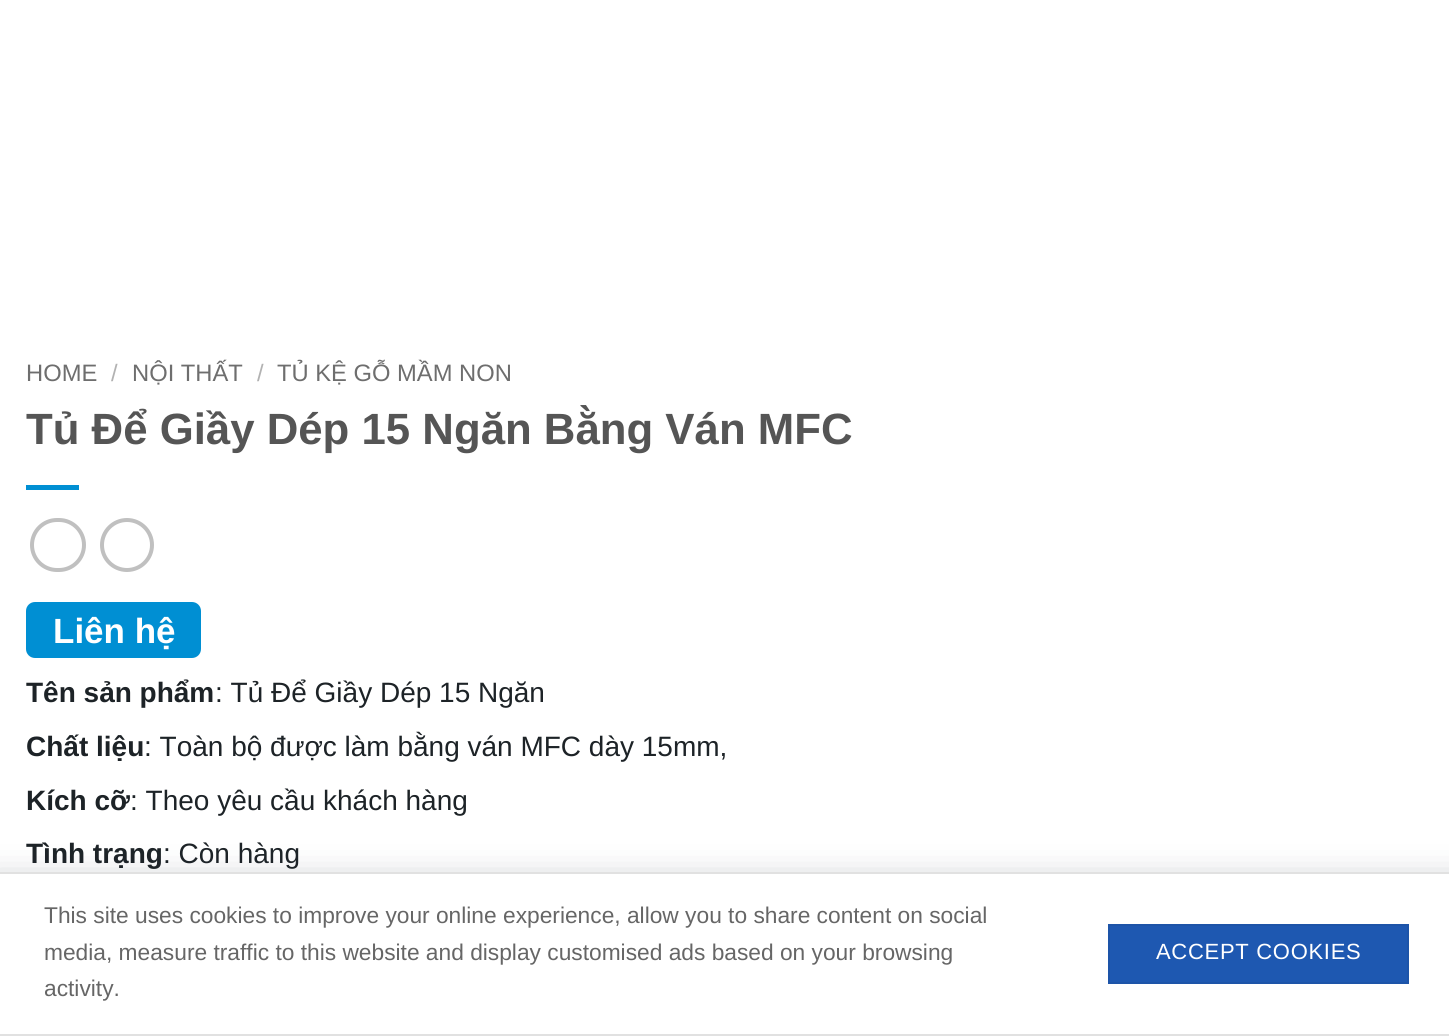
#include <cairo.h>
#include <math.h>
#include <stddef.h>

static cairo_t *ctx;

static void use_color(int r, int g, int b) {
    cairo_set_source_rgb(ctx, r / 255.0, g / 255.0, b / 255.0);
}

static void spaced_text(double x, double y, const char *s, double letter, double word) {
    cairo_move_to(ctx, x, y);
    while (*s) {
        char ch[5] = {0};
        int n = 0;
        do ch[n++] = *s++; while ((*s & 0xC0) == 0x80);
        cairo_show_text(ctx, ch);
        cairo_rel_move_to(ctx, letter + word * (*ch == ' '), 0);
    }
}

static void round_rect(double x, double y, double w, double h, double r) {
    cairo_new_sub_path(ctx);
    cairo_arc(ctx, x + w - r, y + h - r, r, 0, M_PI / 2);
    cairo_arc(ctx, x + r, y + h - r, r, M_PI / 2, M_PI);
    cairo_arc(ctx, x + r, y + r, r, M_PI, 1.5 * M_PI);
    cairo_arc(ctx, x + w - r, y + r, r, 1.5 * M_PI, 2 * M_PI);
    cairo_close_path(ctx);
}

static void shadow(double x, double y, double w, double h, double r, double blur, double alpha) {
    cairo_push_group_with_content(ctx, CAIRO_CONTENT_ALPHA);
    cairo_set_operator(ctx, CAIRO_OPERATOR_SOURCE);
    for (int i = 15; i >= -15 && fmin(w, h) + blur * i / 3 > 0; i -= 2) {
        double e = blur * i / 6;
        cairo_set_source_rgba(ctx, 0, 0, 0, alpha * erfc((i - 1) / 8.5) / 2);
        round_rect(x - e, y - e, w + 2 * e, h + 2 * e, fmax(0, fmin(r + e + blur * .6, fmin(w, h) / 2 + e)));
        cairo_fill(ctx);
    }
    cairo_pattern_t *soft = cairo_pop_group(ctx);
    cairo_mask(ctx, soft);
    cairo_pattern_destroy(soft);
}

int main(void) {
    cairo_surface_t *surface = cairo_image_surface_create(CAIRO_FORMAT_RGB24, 1449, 1036);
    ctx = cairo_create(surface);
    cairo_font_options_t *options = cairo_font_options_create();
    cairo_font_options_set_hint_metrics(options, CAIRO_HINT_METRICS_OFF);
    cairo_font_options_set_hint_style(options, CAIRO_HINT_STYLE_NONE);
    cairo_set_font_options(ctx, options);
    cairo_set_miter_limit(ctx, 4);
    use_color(255, 255, 255);
    cairo_paint(ctx);
    cairo_select_font_face(ctx, "Liberation Sans", CAIRO_FONT_SLANT_NORMAL, CAIRO_FONT_WEIGHT_NORMAL);
    cairo_set_font_size(ctx, 23.75);
    use_color(110, 110, 110);
    cairo_move_to(ctx, 26, 381);
    cairo_show_text(ctx, "HOME");
    use_color(178, 178, 178);
    cairo_move_to(ctx, 111, 381);
    cairo_show_text(ctx, "/");
    use_color(110, 110, 110);
    cairo_move_to(ctx, 132, 381);
    cairo_show_text(ctx, "NỘI THẤT");
    use_color(178, 178, 178);
    cairo_move_to(ctx, 257, 381);
    cairo_show_text(ctx, "/");
    use_color(110, 110, 110);
    cairo_move_to(ctx, 277, 381);
    cairo_show_text(ctx, "TỦ KỆ GỖ MẦM NON");
    cairo_select_font_face(ctx, "Liberation Sans", CAIRO_FONT_SLANT_NORMAL, CAIRO_FONT_WEIGHT_BOLD);
    cairo_set_font_size(ctx, 43.75);
    use_color(85, 85, 85);
    cairo_move_to(ctx, 26, 444);
    cairo_show_text(ctx, "Tủ Để Giầy Dép 15 Ngăn Bằng Ván MFC");
    use_color(0, 143, 211);
    cairo_rectangle(ctx, 26, 485, 53, 5);
    cairo_fill(ctx);
    round_rect(32, 520, 52, 50, 25);
    use_color(192, 192, 192);
    cairo_set_line_width(ctx, 4);
    cairo_stroke(ctx);
    cairo_arc(ctx, 127, 545, 25, 0, 2 * M_PI);
    cairo_stroke(ctx);
    use_color(0, 143, 211);
    round_rect(26, 602, 175, 56, 9);
    cairo_fill(ctx);
    cairo_set_font_size(ctx, 35);
    use_color(255, 255, 255);
    cairo_move_to(ctx, 53, 643);
    cairo_show_text(ctx, "Liên hệ");
    cairo_set_font_size(ctx, 28);
    use_color(29, 35, 39);
    cairo_move_to(ctx, 26, 702);
    cairo_show_text(ctx, "Tên sản phẩm");
    cairo_select_font_face(ctx, "Liberation Sans", CAIRO_FONT_SLANT_NORMAL, CAIRO_FONT_WEIGHT_NORMAL);
    cairo_move_to(ctx, 215, 702);
    cairo_show_text(ctx, ": Tủ Để Giầy Dép 15 Ngăn");
    cairo_select_font_face(ctx, "Liberation Sans", CAIRO_FONT_SLANT_NORMAL, CAIRO_FONT_WEIGHT_BOLD);
    cairo_move_to(ctx, 26, 756);
    cairo_show_text(ctx, "Chất liệu");
    cairo_select_font_face(ctx, "Liberation Sans", CAIRO_FONT_SLANT_NORMAL, CAIRO_FONT_WEIGHT_NORMAL);
    cairo_move_to(ctx, 144, 756);
    cairo_show_text(ctx, ": Toàn bộ được làm bằng ván MFC dày 15mm,");
    cairo_select_font_face(ctx, "Liberation Sans", CAIRO_FONT_SLANT_NORMAL, CAIRO_FONT_WEIGHT_BOLD);
    cairo_move_to(ctx, 26, 810);
    cairo_show_text(ctx, "Kích cỡ");
    cairo_select_font_face(ctx, "Liberation Sans", CAIRO_FONT_SLANT_NORMAL, CAIRO_FONT_WEIGHT_NORMAL);
    cairo_move_to(ctx, 130, 810);
    cairo_show_text(ctx, ": Theo yêu cầu khách hàng");
    cairo_select_font_face(ctx, "Liberation Sans", CAIRO_FONT_SLANT_NORMAL, CAIRO_FONT_WEIGHT_BOLD);
    cairo_move_to(ctx, 26, 863);
    cairo_show_text(ctx, "Tình trạng");
    cairo_select_font_face(ctx, "Liberation Sans", CAIRO_FONT_SLANT_NORMAL, CAIRO_FONT_WEIGHT_NORMAL);
    cairo_move_to(ctx, 163, 863);
    cairo_show_text(ctx, ": Còn hàng");
    use_color(36, 47, 66);
    shadow(-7, 882, 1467, 144, 0, 17.5, 0.31);
    use_color(255, 255, 255);
    cairo_rectangle(ctx, -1, 873, 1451, 162);
    cairo_fill_preserve(ctx);
    use_color(225, 225, 225);
    cairo_set_line_width(ctx, 2);
    cairo_stroke(ctx);
    cairo_set_font_size(ctx, 22.75);
    use_color(102, 102, 102);
    cairo_move_to(ctx, 44, 923);
    cairo_show_text(ctx, "This site uses cookies to improve your online experience, allow you to share content on social");
    cairo_move_to(ctx, 44, 960);
    cairo_show_text(ctx, "media, measure traffic to this website and display customised ads based on your browsing");
    cairo_move_to(ctx, 44, 996);
    cairo_show_text(ctx, "activity.");
    use_color(30, 88, 177);
    cairo_rectangle(ctx, 1109, 925, 299, 58);
    cairo_fill_preserve(ctx);
    use_color(29, 84, 168);
    cairo_stroke(ctx);
    cairo_set_font_size(ctx, 22);
    use_color(255, 255, 255);
    spaced_text(1156, 959, "ACCEPT COOKIES", 0.7, 0);
    cairo_surface_write_to_png(surface, "result.png");
    cairo_font_options_destroy(options);
    cairo_destroy(ctx);
    cairo_surface_destroy(surface);
    return 0;
}
